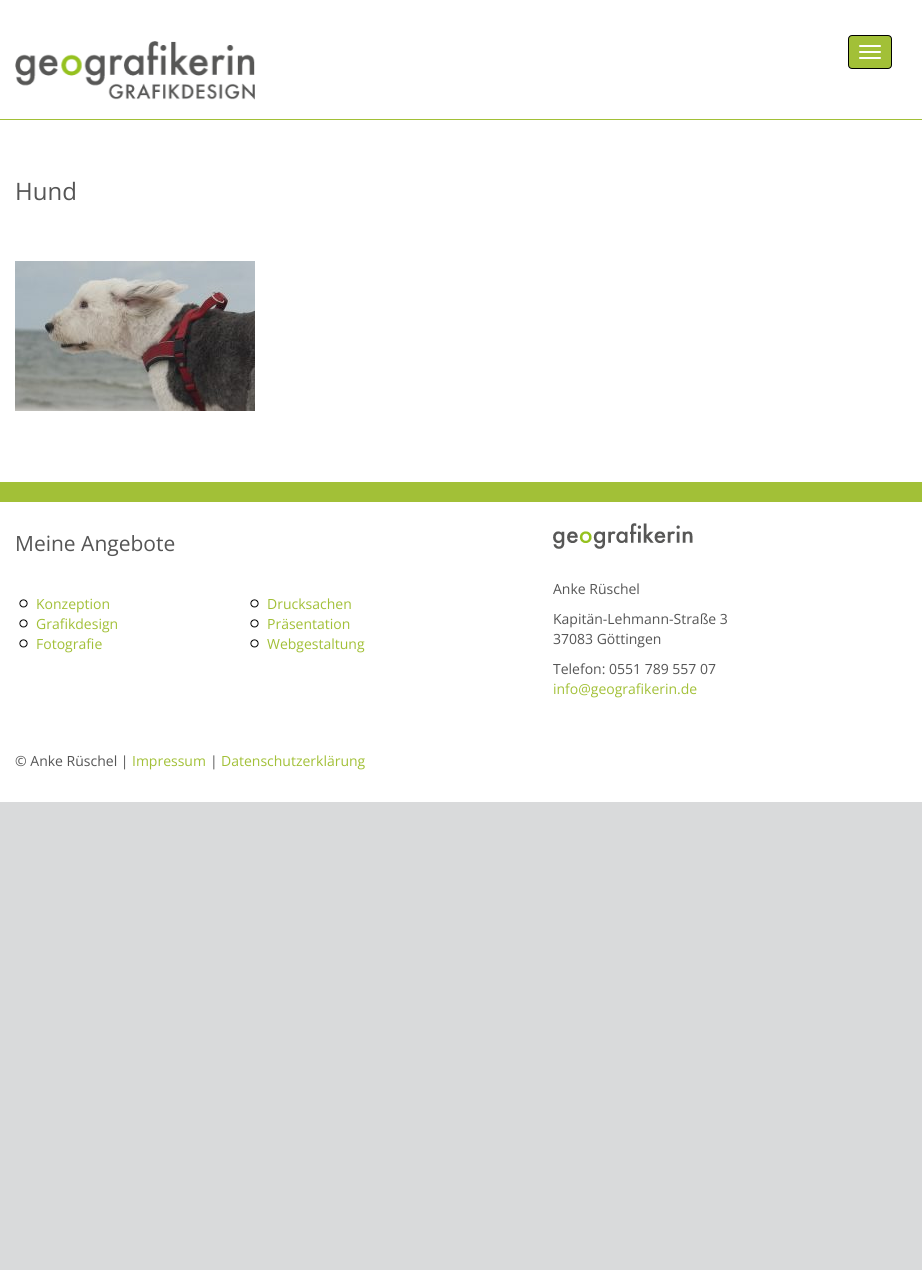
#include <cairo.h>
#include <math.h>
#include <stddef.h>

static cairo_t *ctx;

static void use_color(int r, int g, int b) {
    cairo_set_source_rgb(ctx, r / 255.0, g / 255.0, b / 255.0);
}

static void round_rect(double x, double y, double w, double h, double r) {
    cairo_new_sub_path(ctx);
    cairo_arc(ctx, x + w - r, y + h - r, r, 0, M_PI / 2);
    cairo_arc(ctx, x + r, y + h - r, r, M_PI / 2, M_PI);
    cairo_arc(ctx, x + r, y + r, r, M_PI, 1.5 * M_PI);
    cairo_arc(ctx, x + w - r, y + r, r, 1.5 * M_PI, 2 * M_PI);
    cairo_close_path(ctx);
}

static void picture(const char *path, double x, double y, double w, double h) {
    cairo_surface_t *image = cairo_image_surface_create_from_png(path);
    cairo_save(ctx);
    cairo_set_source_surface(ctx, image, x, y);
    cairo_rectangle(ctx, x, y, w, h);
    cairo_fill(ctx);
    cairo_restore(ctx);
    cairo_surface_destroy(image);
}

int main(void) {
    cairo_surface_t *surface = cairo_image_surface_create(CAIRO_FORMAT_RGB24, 922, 1270);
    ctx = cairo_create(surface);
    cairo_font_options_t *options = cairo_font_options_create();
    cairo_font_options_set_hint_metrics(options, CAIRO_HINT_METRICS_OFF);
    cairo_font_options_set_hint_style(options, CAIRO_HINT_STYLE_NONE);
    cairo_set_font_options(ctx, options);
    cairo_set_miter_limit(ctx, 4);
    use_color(217, 218, 219);
    cairo_paint(ctx);
    use_color(255, 255, 255);
    cairo_rectangle(ctx, 0, 0, 922, 119);
    cairo_fill(ctx);
    use_color(162, 192, 55);
    cairo_rectangle(ctx, 0, 119, 922, 1);
    cairo_fill(ctx);
    picture("img1.png", 15, 41, 240, 59);
    round_rect(848.5, 35.5, 43, 33, 3.5);
    cairo_fill_preserve(ctx);
    use_color(0, 0, 0);
    cairo_set_line_width(ctx, 1);
    cairo_stroke(ctx);
    use_color(255, 255, 255);
    round_rect(859, 45, 22, 2, 1);
    cairo_fill(ctx);
    round_rect(859, 51, 22, 2, 1);
    cairo_fill(ctx);
    round_rect(859, 57, 22, 2, 1);
    cairo_fill(ctx);
    cairo_rectangle(ctx, 0, 120, 922, 362);
    cairo_fill(ctx);
    cairo_select_font_face(ctx, "Open Sans", CAIRO_FONT_SLANT_NORMAL, CAIRO_FONT_WEIGHT_NORMAL);
    cairo_set_font_size(ctx, 24);
    use_color(85, 85, 85);
    cairo_move_to(ctx, 15, 200);
    cairo_show_text(ctx, "Hund");
    picture("img2.png", 15, 261, 240, 150);
    use_color(255, 255, 255);
    cairo_rectangle(ctx, 0, 502, 922, 300);
    cairo_fill(ctx);
    use_color(162, 192, 55);
    cairo_rectangle(ctx, 0, 482, 922, 20);
    cairo_fill(ctx);
    cairo_set_font_size(ctx, 21);
    use_color(85, 85, 85);
    cairo_move_to(ctx, 15, 551);
    cairo_show_text(ctx, "Meine Angebote");
    picture("img3.png", 19, 599, 9, 9);
    cairo_set_font_size(ctx, 14);
    use_color(162, 192, 55);
    cairo_move_to(ctx, 36, 609);
    cairo_show_text(ctx, "Konzeption");
    picture("img3.png", 19, 619, 9, 9);
    cairo_move_to(ctx, 36, 629);
    cairo_show_text(ctx, "Grafikdesign");
    picture("img3.png", 19, 639, 9, 9);
    cairo_move_to(ctx, 36, 649);
    cairo_show_text(ctx, "Fotografie");
    picture("img3.png", 250, 599, 9, 9);
    cairo_move_to(ctx, 267, 609);
    cairo_show_text(ctx, "Drucksachen");
    picture("img3.png", 250, 619, 9, 9);
    cairo_move_to(ctx, 267, 629);
    cairo_show_text(ctx, "Präsentation");
    picture("img3.png", 250, 639, 9, 9);
    cairo_move_to(ctx, 267, 649);
    cairo_show_text(ctx, "Webgestaltung");
    picture("img4.png", 553, 523, 140, 26);
    use_color(85, 85, 85);
    cairo_move_to(ctx, 553, 594);
    cairo_show_text(ctx, "Anke Rüschel");
    cairo_move_to(ctx, 553, 624);
    cairo_show_text(ctx, "Kapitän-Lehmann-Straße 3");
    cairo_move_to(ctx, 553, 644);
    cairo_show_text(ctx, "37083 Göttingen");
    cairo_move_to(ctx, 553, 674);
    cairo_show_text(ctx, "Telefon: 0551 789 557 07");
    use_color(162, 192, 55);
    cairo_move_to(ctx, 553, 694);
    cairo_show_text(ctx, "info@geografikerin.de");
    use_color(85, 85, 85);
    cairo_move_to(ctx, 15, 766);
    cairo_show_text(ctx, "© Anke Rüschel |");
    use_color(162, 192, 55);
    cairo_move_to(ctx, 132, 766);
    cairo_show_text(ctx, "Impressum");
    use_color(85, 85, 85);
    cairo_move_to(ctx, 210, 766);
    cairo_show_text(ctx, "|");
    use_color(162, 192, 55);
    cairo_move_to(ctx, 221, 766);
    cairo_show_text(ctx, "Datenschutzerklärung");
    cairo_surface_write_to_png(surface, "result.png");
    cairo_font_options_destroy(options);
    cairo_destroy(ctx);
    cairo_surface_destroy(surface);
    return 0;
}
